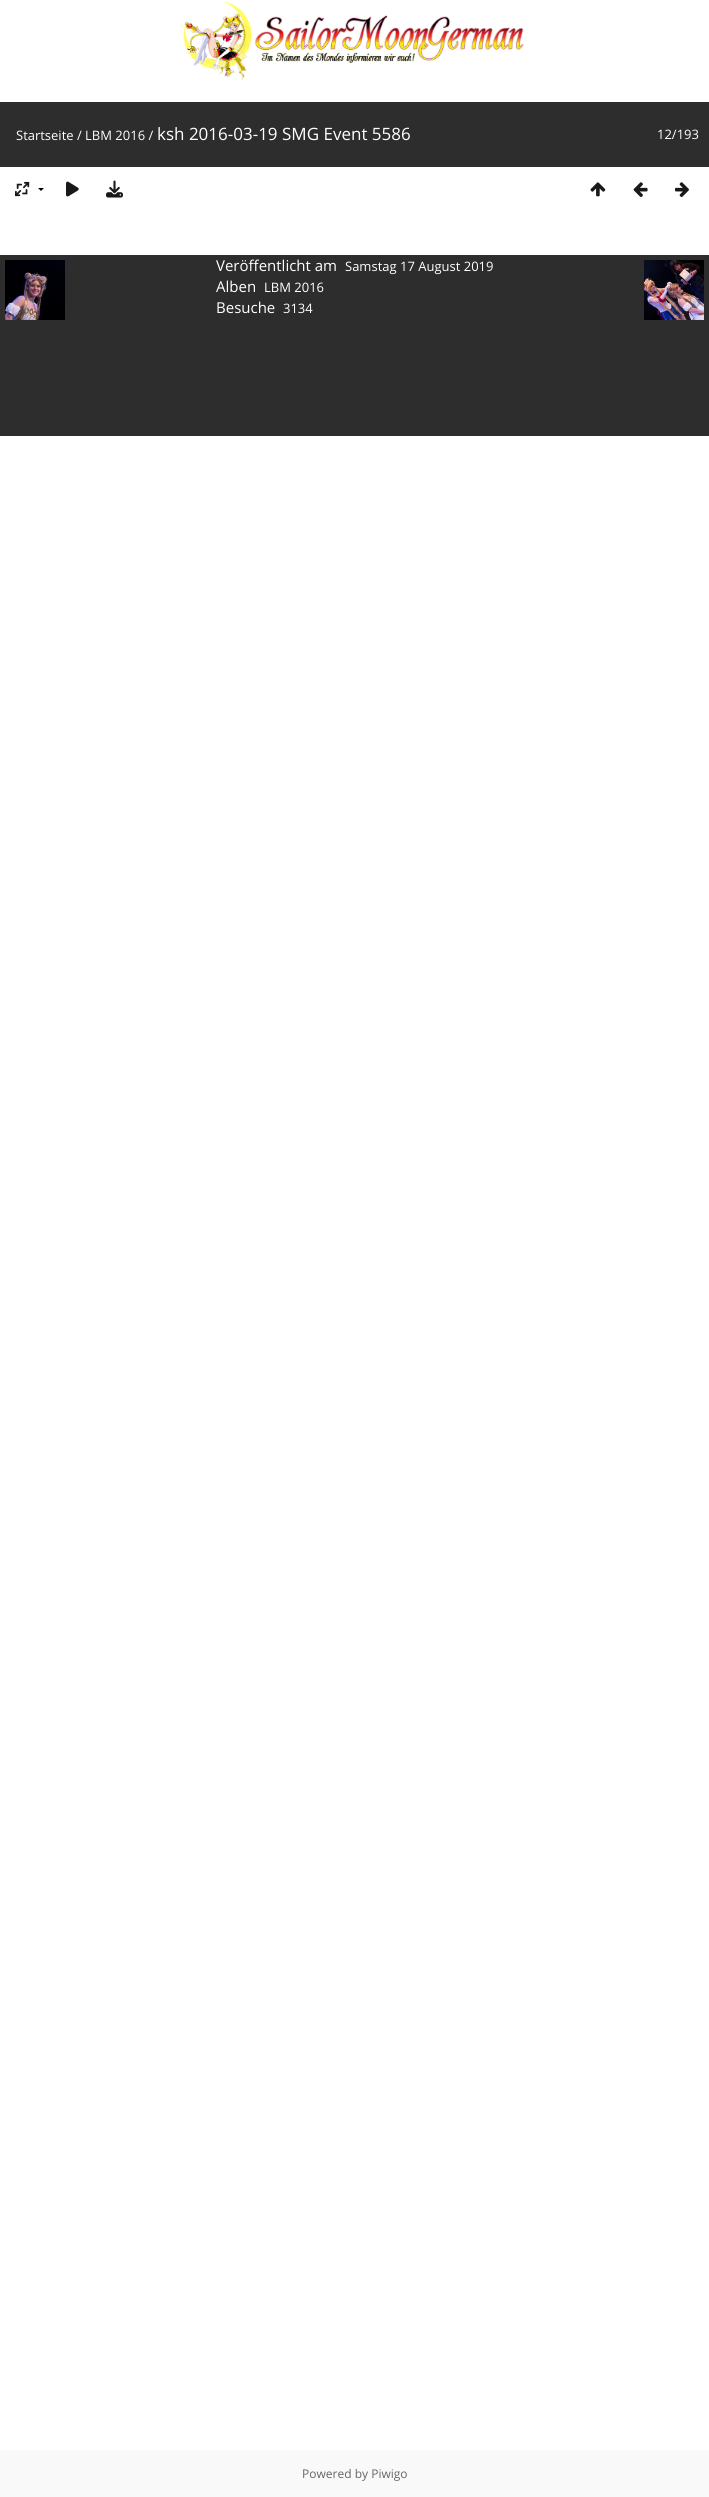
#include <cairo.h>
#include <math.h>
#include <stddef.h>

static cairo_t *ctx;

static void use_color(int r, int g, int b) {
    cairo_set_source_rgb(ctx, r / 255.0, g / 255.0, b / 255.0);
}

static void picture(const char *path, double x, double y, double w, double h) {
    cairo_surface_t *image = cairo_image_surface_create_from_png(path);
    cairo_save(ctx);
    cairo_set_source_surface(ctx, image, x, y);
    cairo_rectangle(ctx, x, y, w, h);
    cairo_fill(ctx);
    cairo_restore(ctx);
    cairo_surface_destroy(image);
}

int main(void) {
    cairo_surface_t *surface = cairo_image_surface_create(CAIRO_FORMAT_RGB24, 709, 2497);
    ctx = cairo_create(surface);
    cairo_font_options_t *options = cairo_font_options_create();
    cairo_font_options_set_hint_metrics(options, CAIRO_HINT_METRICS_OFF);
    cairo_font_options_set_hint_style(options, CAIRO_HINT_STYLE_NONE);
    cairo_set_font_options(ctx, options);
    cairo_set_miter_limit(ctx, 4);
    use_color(255, 255, 255);
    cairo_paint(ctx);
    picture("img1.png", 183, 1, 341, 79);
    use_color(45, 45, 45);
    cairo_rectangle(ctx, 0, 102, 709, 65);
    cairo_fill(ctx);
    cairo_select_font_face(ctx, "Open Sans", CAIRO_FONT_SLANT_NORMAL, CAIRO_FONT_WEIGHT_NORMAL);
    cairo_set_font_size(ctx, 13);
    use_color(255, 255, 255);
    cairo_move_to(ctx, 16, 140);
    cairo_show_text(ctx, "Startseite / LBM 2016 /");
    cairo_set_font_size(ctx, 17);
    cairo_move_to(ctx, 157, 140);
    cairo_show_text(ctx, "ksh 2016-03-19 SMG Event 5586");
    cairo_set_font_size(ctx, 13);
    cairo_move_to(ctx, 657, 139);
    cairo_show_text(ctx, "12/193");
    picture("img2.png", 15, 181, 15, 16);
    use_color(0, 0, 0);
    cairo_new_path(ctx);
    cairo_move_to(ctx, 38, 188);
    cairo_line_to(ctx, 44, 188);
    cairo_line_to(ctx, 41, 191);
    cairo_close_path(ctx);
    cairo_fill(ctx);
    picture("img3.png", 66, 181, 13, 16);
    picture("img4.png", 106, 180, 17, 18);
    picture("img5.png", 590, 182, 16, 15);
    picture("img6.png", 633, 182, 15, 15);
    picture("img7.png", 675, 182, 14, 15);
    use_color(45, 45, 45);
    cairo_rectangle(ctx, 0, 255, 709, 181);
    cairo_fill(ctx);
    cairo_set_font_size(ctx, 15);
    use_color(255, 255, 255);
    cairo_move_to(ctx, 216, 271);
    cairo_show_text(ctx, "Veröffentlicht am");
    cairo_set_font_size(ctx, 13);
    cairo_move_to(ctx, 345, 271);
    cairo_show_text(ctx, "Samstag 17 August 2019");
    cairo_set_font_size(ctx, 15);
    cairo_move_to(ctx, 216, 292);
    cairo_show_text(ctx, "Alben");
    cairo_set_font_size(ctx, 13);
    cairo_move_to(ctx, 264, 292);
    cairo_show_text(ctx, "LBM 2016");
    cairo_set_font_size(ctx, 15);
    cairo_move_to(ctx, 216, 313);
    cairo_show_text(ctx, "Besuche");
    cairo_set_font_size(ctx, 13);
    cairo_move_to(ctx, 283, 313);
    cairo_show_text(ctx, "3134");
    picture("img8.png", 5, 260, 60, 60);
    picture("img9.png", 644, 260, 60, 60);
    use_color(249, 249, 249);
    cairo_rectangle(ctx, 0, 2450, 709, 47);
    cairo_fill(ctx);
    cairo_set_font_size(ctx, 12);
    use_color(102, 102, 102);
    cairo_move_to(ctx, 302, 2478);
    cairo_show_text(ctx, "Powered by Piwigo");
    cairo_surface_write_to_png(surface, "result.png");
    cairo_font_options_destroy(options);
    cairo_destroy(ctx);
    cairo_surface_destroy(surface);
    return 0;
}
